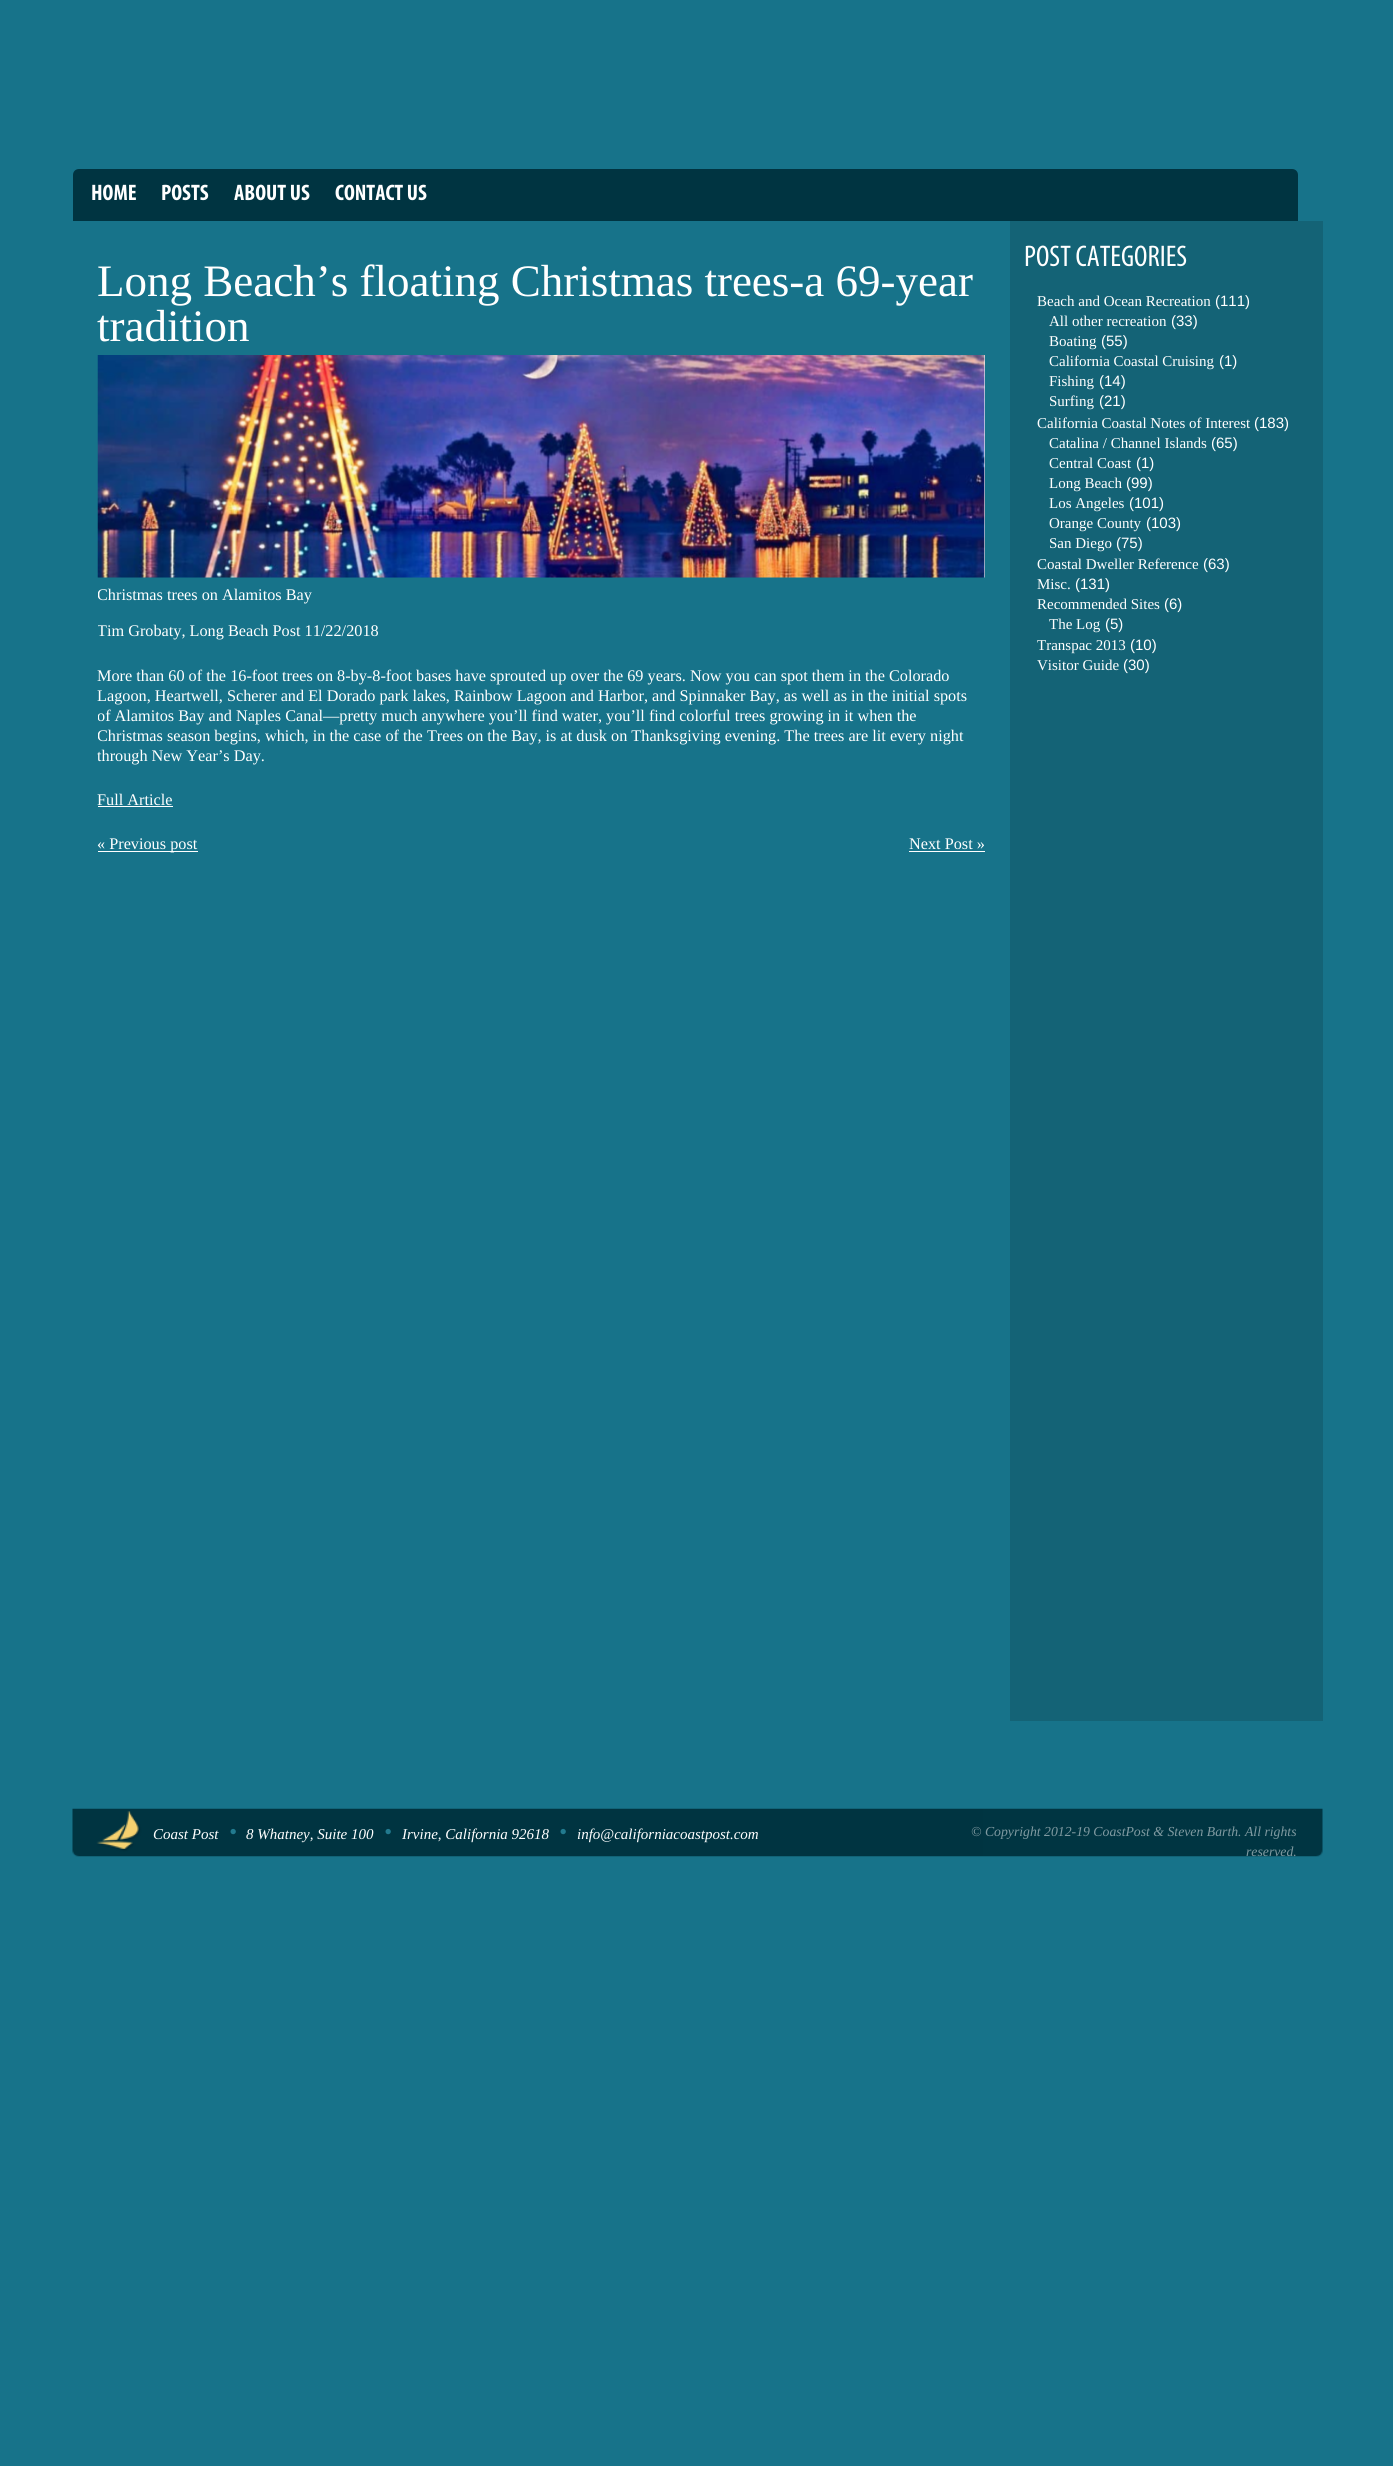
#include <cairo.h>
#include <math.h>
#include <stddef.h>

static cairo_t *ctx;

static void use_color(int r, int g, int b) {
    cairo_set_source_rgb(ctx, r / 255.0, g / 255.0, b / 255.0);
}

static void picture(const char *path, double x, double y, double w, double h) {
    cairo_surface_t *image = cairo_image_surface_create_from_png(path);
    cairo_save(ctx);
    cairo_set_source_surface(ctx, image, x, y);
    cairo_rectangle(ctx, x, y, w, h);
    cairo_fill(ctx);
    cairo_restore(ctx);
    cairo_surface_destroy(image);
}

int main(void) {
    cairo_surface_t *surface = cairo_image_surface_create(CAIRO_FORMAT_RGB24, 1393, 2466);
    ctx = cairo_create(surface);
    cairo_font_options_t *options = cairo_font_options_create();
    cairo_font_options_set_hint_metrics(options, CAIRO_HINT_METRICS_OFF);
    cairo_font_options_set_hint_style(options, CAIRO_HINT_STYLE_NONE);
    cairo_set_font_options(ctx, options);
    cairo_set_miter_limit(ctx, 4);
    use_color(23, 115, 138);
    cairo_paint(ctx);
    use_color(0, 52, 65);
    cairo_new_path(ctx);
    cairo_move_to(ctx, 79, 169);
    cairo_line_to(ctx, 1292, 169);
    cairo_curve_to(ctx, 1295.5, 169, 1298, 171.5, 1298, 175);
    cairo_line_to(ctx, 1298, 221);
    cairo_line_to(ctx, 73, 221);
    cairo_line_to(ctx, 73, 175);
    cairo_curve_to(ctx, 73, 171.5, 75.5, 169, 79, 169);
    cairo_close_path(ctx);
    cairo_fill(ctx);
    cairo_select_font_face(ctx, "Myriad", CAIRO_FONT_SLANT_NORMAL, CAIRO_FONT_WEIGHT_BOLD);
    cairo_set_font_size(ctx, 22.5);
    use_color(255, 255, 255);
    cairo_move_to(ctx, 91, 200);
    cairo_show_text(ctx, "HOME");
    cairo_move_to(ctx, 161, 200);
    cairo_show_text(ctx, "POSTS");
    cairo_move_to(ctx, 234, 200);
    cairo_show_text(ctx, "ABOUT US");
    cairo_move_to(ctx, 335, 200);
    cairo_show_text(ctx, "CONTACT US");
    cairo_select_font_face(ctx, "Liberation Serif", CAIRO_FONT_SLANT_NORMAL, CAIRO_FONT_WEIGHT_NORMAL);
    cairo_set_font_size(ctx, 45);
    cairo_move_to(ctx, 97, 296);
    cairo_show_text(ctx, "Long Beach’s floating Christmas trees-a 69-year");
    cairo_move_to(ctx, 97, 341);
    cairo_show_text(ctx, "tradition");
    picture("img1.png", 97, 355, 888, 223);
    cairo_save(ctx);
    cairo_rectangle(ctx, 98, 221, 887, 614);
    cairo_clip(ctx);
    cairo_set_font_size(ctx, 16.25);
    cairo_move_to(ctx, 97, 600);
    cairo_show_text(ctx, "Christmas trees on Alamitos Bay");
    cairo_move_to(ctx, 97, 636);
    cairo_show_text(ctx, "Tim Grobaty, Long Beach Post 11/22/2018");
    cairo_restore(ctx);
    cairo_set_font_size(ctx, 16.25);
    cairo_move_to(ctx, 97, 681);
    cairo_show_text(ctx, "More than 60 of the 16-foot trees on 8-by-8-foot bases have sprouted up over the 69 years. Now you can spot them in the Colorado");
    cairo_move_to(ctx, 97, 701);
    cairo_show_text(ctx, "Lagoon, Heartwell, Scherer and El Dorado park lakes, Rainbow Lagoon and Harbor, and Spinnaker Bay, as well as in the initial spots");
    cairo_save(ctx);
    cairo_rectangle(ctx, 98, 221, 887, 614);
    cairo_clip(ctx);
    cairo_move_to(ctx, 97, 721);
    cairo_show_text(ctx, "of Alamitos Bay and Naples Canal—pretty much anywhere you’ll find water, you’ll find colorful trees growing in it when the");
    cairo_move_to(ctx, 97, 741);
    cairo_show_text(ctx, "Christmas season begins, which, in the case of the Trees on the Bay, is at dusk on Thanksgiving evening. The trees are lit every night");
    cairo_restore(ctx);
    cairo_move_to(ctx, 97, 761);
    cairo_show_text(ctx, "through New Year’s Day.");
    cairo_move_to(ctx, 97, 805);
    cairo_show_text(ctx, "Full Article");
    cairo_rectangle(ctx, 98, 806, 75, 1);
    cairo_fill(ctx);
    cairo_rectangle(ctx, 98, 851, 100, 1);
    cairo_fill(ctx);
    cairo_move_to(ctx, 97, 849);
    cairo_show_text(ctx, "« Previous post");
    cairo_move_to(ctx, 909, 849);
    cairo_show_text(ctx, "Next Post »");
    cairo_rectangle(ctx, 909, 851, 76, 1);
    cairo_fill(ctx);
    use_color(20, 99, 118);
    cairo_rectangle(ctx, 1010, 221, 313, 1500);
    cairo_fill(ctx);
    cairo_select_font_face(ctx, "Myriad", CAIRO_FONT_SLANT_NORMAL, CAIRO_FONT_WEIGHT_NORMAL);
    cairo_set_font_size(ctx, 30);
    use_color(255, 255, 255);
    cairo_move_to(ctx, 1024, 266);
    cairo_show_text(ctx, "POST CATEGORIES");
    cairo_select_font_face(ctx, "Liberation Serif", CAIRO_FONT_SLANT_NORMAL, CAIRO_FONT_WEIGHT_NORMAL);
    cairo_set_font_size(ctx, 15);
    cairo_move_to(ctx, 1037, 306);
    cairo_show_text(ctx, "Beach and Ocean Recreation");
    cairo_select_font_face(ctx, "Liberation Sans", CAIRO_FONT_SLANT_NORMAL, CAIRO_FONT_WEIGHT_NORMAL);
    cairo_move_to(ctx, 1215, 306);
    cairo_show_text(ctx, "(111)");
    cairo_select_font_face(ctx, "Liberation Serif", CAIRO_FONT_SLANT_NORMAL, CAIRO_FONT_WEIGHT_NORMAL);
    cairo_move_to(ctx, 1049, 326);
    cairo_show_text(ctx, "All other recreation");
    cairo_select_font_face(ctx, "Liberation Sans", CAIRO_FONT_SLANT_NORMAL, CAIRO_FONT_WEIGHT_NORMAL);
    cairo_move_to(ctx, 1171, 326);
    cairo_show_text(ctx, "(33)");
    cairo_select_font_face(ctx, "Liberation Serif", CAIRO_FONT_SLANT_NORMAL, CAIRO_FONT_WEIGHT_NORMAL);
    cairo_move_to(ctx, 1049, 346);
    cairo_show_text(ctx, "Boating");
    cairo_select_font_face(ctx, "Liberation Sans", CAIRO_FONT_SLANT_NORMAL, CAIRO_FONT_WEIGHT_NORMAL);
    cairo_move_to(ctx, 1101, 346);
    cairo_show_text(ctx, "(55)");
    cairo_select_font_face(ctx, "Liberation Serif", CAIRO_FONT_SLANT_NORMAL, CAIRO_FONT_WEIGHT_NORMAL);
    cairo_move_to(ctx, 1049, 366);
    cairo_show_text(ctx, "California Coastal Cruising");
    cairo_select_font_face(ctx, "Liberation Sans", CAIRO_FONT_SLANT_NORMAL, CAIRO_FONT_WEIGHT_NORMAL);
    cairo_move_to(ctx, 1219, 366);
    cairo_show_text(ctx, "(1)");
    cairo_select_font_face(ctx, "Liberation Serif", CAIRO_FONT_SLANT_NORMAL, CAIRO_FONT_WEIGHT_NORMAL);
    cairo_move_to(ctx, 1049, 386);
    cairo_show_text(ctx, "Fishing");
    cairo_select_font_face(ctx, "Liberation Sans", CAIRO_FONT_SLANT_NORMAL, CAIRO_FONT_WEIGHT_NORMAL);
    cairo_move_to(ctx, 1099, 386);
    cairo_show_text(ctx, "(14)");
    cairo_select_font_face(ctx, "Liberation Serif", CAIRO_FONT_SLANT_NORMAL, CAIRO_FONT_WEIGHT_NORMAL);
    cairo_move_to(ctx, 1049, 406);
    cairo_show_text(ctx, "Surfing");
    cairo_select_font_face(ctx, "Liberation Sans", CAIRO_FONT_SLANT_NORMAL, CAIRO_FONT_WEIGHT_NORMAL);
    cairo_move_to(ctx, 1099, 406);
    cairo_show_text(ctx, "(21)");
    cairo_select_font_face(ctx, "Liberation Serif", CAIRO_FONT_SLANT_NORMAL, CAIRO_FONT_WEIGHT_NORMAL);
    cairo_move_to(ctx, 1037, 428);
    cairo_show_text(ctx, "California Coastal Notes of Interest");
    cairo_select_font_face(ctx, "Liberation Sans", CAIRO_FONT_SLANT_NORMAL, CAIRO_FONT_WEIGHT_NORMAL);
    cairo_move_to(ctx, 1254, 428);
    cairo_show_text(ctx, "(183)");
    cairo_select_font_face(ctx, "Liberation Serif", CAIRO_FONT_SLANT_NORMAL, CAIRO_FONT_WEIGHT_NORMAL);
    cairo_move_to(ctx, 1049, 448);
    cairo_show_text(ctx, "Catalina / Channel Islands");
    cairo_select_font_face(ctx, "Liberation Sans", CAIRO_FONT_SLANT_NORMAL, CAIRO_FONT_WEIGHT_NORMAL);
    cairo_move_to(ctx, 1211, 448);
    cairo_show_text(ctx, "(65)");
    cairo_select_font_face(ctx, "Liberation Serif", CAIRO_FONT_SLANT_NORMAL, CAIRO_FONT_WEIGHT_NORMAL);
    cairo_move_to(ctx, 1049, 468);
    cairo_show_text(ctx, "Central Coast");
    cairo_select_font_face(ctx, "Liberation Sans", CAIRO_FONT_SLANT_NORMAL, CAIRO_FONT_WEIGHT_NORMAL);
    cairo_move_to(ctx, 1136, 468);
    cairo_show_text(ctx, "(1)");
    cairo_select_font_face(ctx, "Liberation Serif", CAIRO_FONT_SLANT_NORMAL, CAIRO_FONT_WEIGHT_NORMAL);
    cairo_move_to(ctx, 1049, 488);
    cairo_show_text(ctx, "Long Beach");
    cairo_select_font_face(ctx, "Liberation Sans", CAIRO_FONT_SLANT_NORMAL, CAIRO_FONT_WEIGHT_NORMAL);
    cairo_move_to(ctx, 1126, 488);
    cairo_show_text(ctx, "(99)");
    cairo_select_font_face(ctx, "Liberation Serif", CAIRO_FONT_SLANT_NORMAL, CAIRO_FONT_WEIGHT_NORMAL);
    cairo_move_to(ctx, 1049, 508);
    cairo_show_text(ctx, "Los Angeles");
    cairo_select_font_face(ctx, "Liberation Sans", CAIRO_FONT_SLANT_NORMAL, CAIRO_FONT_WEIGHT_NORMAL);
    cairo_move_to(ctx, 1129, 508);
    cairo_show_text(ctx, "(101)");
    cairo_select_font_face(ctx, "Liberation Serif", CAIRO_FONT_SLANT_NORMAL, CAIRO_FONT_WEIGHT_NORMAL);
    cairo_move_to(ctx, 1049, 528);
    cairo_show_text(ctx, "Orange County");
    cairo_select_font_face(ctx, "Liberation Sans", CAIRO_FONT_SLANT_NORMAL, CAIRO_FONT_WEIGHT_NORMAL);
    cairo_move_to(ctx, 1146, 528);
    cairo_show_text(ctx, "(103)");
    cairo_select_font_face(ctx, "Liberation Serif", CAIRO_FONT_SLANT_NORMAL, CAIRO_FONT_WEIGHT_NORMAL);
    cairo_move_to(ctx, 1049, 548);
    cairo_show_text(ctx, "San Diego");
    cairo_select_font_face(ctx, "Liberation Sans", CAIRO_FONT_SLANT_NORMAL, CAIRO_FONT_WEIGHT_NORMAL);
    cairo_move_to(ctx, 1116, 548);
    cairo_show_text(ctx, "(75)");
    cairo_select_font_face(ctx, "Liberation Serif", CAIRO_FONT_SLANT_NORMAL, CAIRO_FONT_WEIGHT_NORMAL);
    cairo_move_to(ctx, 1037, 569);
    cairo_show_text(ctx, "Coastal Dweller Reference");
    cairo_select_font_face(ctx, "Liberation Sans", CAIRO_FONT_SLANT_NORMAL, CAIRO_FONT_WEIGHT_NORMAL);
    cairo_move_to(ctx, 1203, 569);
    cairo_show_text(ctx, "(63)");
    cairo_select_font_face(ctx, "Liberation Serif", CAIRO_FONT_SLANT_NORMAL, CAIRO_FONT_WEIGHT_NORMAL);
    cairo_move_to(ctx, 1037, 589);
    cairo_show_text(ctx, "Misc.");
    cairo_select_font_face(ctx, "Liberation Sans", CAIRO_FONT_SLANT_NORMAL, CAIRO_FONT_WEIGHT_NORMAL);
    cairo_move_to(ctx, 1075, 589);
    cairo_show_text(ctx, "(131)");
    cairo_select_font_face(ctx, "Liberation Serif", CAIRO_FONT_SLANT_NORMAL, CAIRO_FONT_WEIGHT_NORMAL);
    cairo_move_to(ctx, 1037, 609);
    cairo_show_text(ctx, "Recommended Sites");
    cairo_select_font_face(ctx, "Liberation Sans", CAIRO_FONT_SLANT_NORMAL, CAIRO_FONT_WEIGHT_NORMAL);
    cairo_move_to(ctx, 1164, 609);
    cairo_show_text(ctx, "(6)");
    cairo_select_font_face(ctx, "Liberation Serif", CAIRO_FONT_SLANT_NORMAL, CAIRO_FONT_WEIGHT_NORMAL);
    cairo_move_to(ctx, 1049, 629);
    cairo_show_text(ctx, "The Log");
    cairo_select_font_face(ctx, "Liberation Sans", CAIRO_FONT_SLANT_NORMAL, CAIRO_FONT_WEIGHT_NORMAL);
    cairo_move_to(ctx, 1105, 629);
    cairo_show_text(ctx, "(5)");
    cairo_select_font_face(ctx, "Liberation Serif", CAIRO_FONT_SLANT_NORMAL, CAIRO_FONT_WEIGHT_NORMAL);
    cairo_move_to(ctx, 1037, 650);
    cairo_show_text(ctx, "Transpac 2013");
    cairo_select_font_face(ctx, "Liberation Sans", CAIRO_FONT_SLANT_NORMAL, CAIRO_FONT_WEIGHT_NORMAL);
    cairo_move_to(ctx, 1130, 650);
    cairo_show_text(ctx, "(10)");
    cairo_select_font_face(ctx, "Liberation Serif", CAIRO_FONT_SLANT_NORMAL, CAIRO_FONT_WEIGHT_NORMAL);
    cairo_move_to(ctx, 1037, 670);
    cairo_show_text(ctx, "Visitor Guide");
    cairo_select_font_face(ctx, "Liberation Sans", CAIRO_FONT_SLANT_NORMAL, CAIRO_FONT_WEIGHT_NORMAL);
    cairo_move_to(ctx, 1123, 670);
    cairo_show_text(ctx, "(30)");
    picture("img2.png", 72, 1808, 1251, 49);
    cairo_select_font_face(ctx, "Liberation Serif", CAIRO_FONT_SLANT_ITALIC, CAIRO_FONT_WEIGHT_NORMAL);
    cairo_move_to(ctx, 153, 1839);
    cairo_show_text(ctx, "Coast Post");
    cairo_set_font_size(ctx, 22.5);
    use_color(34, 122, 143);
    cairo_move_to(ctx, 229, 1839);
    cairo_show_text(ctx, "•");
    cairo_set_font_size(ctx, 15);
    use_color(255, 255, 255);
    cairo_move_to(ctx, 246, 1839);
    cairo_show_text(ctx, "8 Whatney, Suite 100");
    cairo_set_font_size(ctx, 22.5);
    use_color(34, 122, 143);
    cairo_move_to(ctx, 384, 1839);
    cairo_show_text(ctx, "•");
    cairo_set_font_size(ctx, 15);
    use_color(255, 255, 255);
    cairo_move_to(ctx, 402, 1839);
    cairo_show_text(ctx, "Irvine, California 92618");
    cairo_set_font_size(ctx, 22.5);
    use_color(34, 122, 143);
    cairo_move_to(ctx, 559, 1839);
    cairo_show_text(ctx, "•");
    cairo_set_font_size(ctx, 15);
    use_color(255, 255, 255);
    cairo_move_to(ctx, 577, 1839);
    cairo_show_text(ctx, "info@californiacoastpost.com");
    cairo_set_font_size(ctx, 13.75);
    use_color(128, 154, 161);
    cairo_move_to(ctx, 971, 1836);
    cairo_show_text(ctx, "© Copyright 2012-19 CoastPost & Steven Barth. All rights");
    cairo_move_to(ctx, 1246, 1856);
    cairo_show_text(ctx, "reserved.");
    cairo_surface_write_to_png(surface, "result.png");
    cairo_font_options_destroy(options);
    cairo_destroy(ctx);
    cairo_surface_destroy(surface);
    return 0;
}
